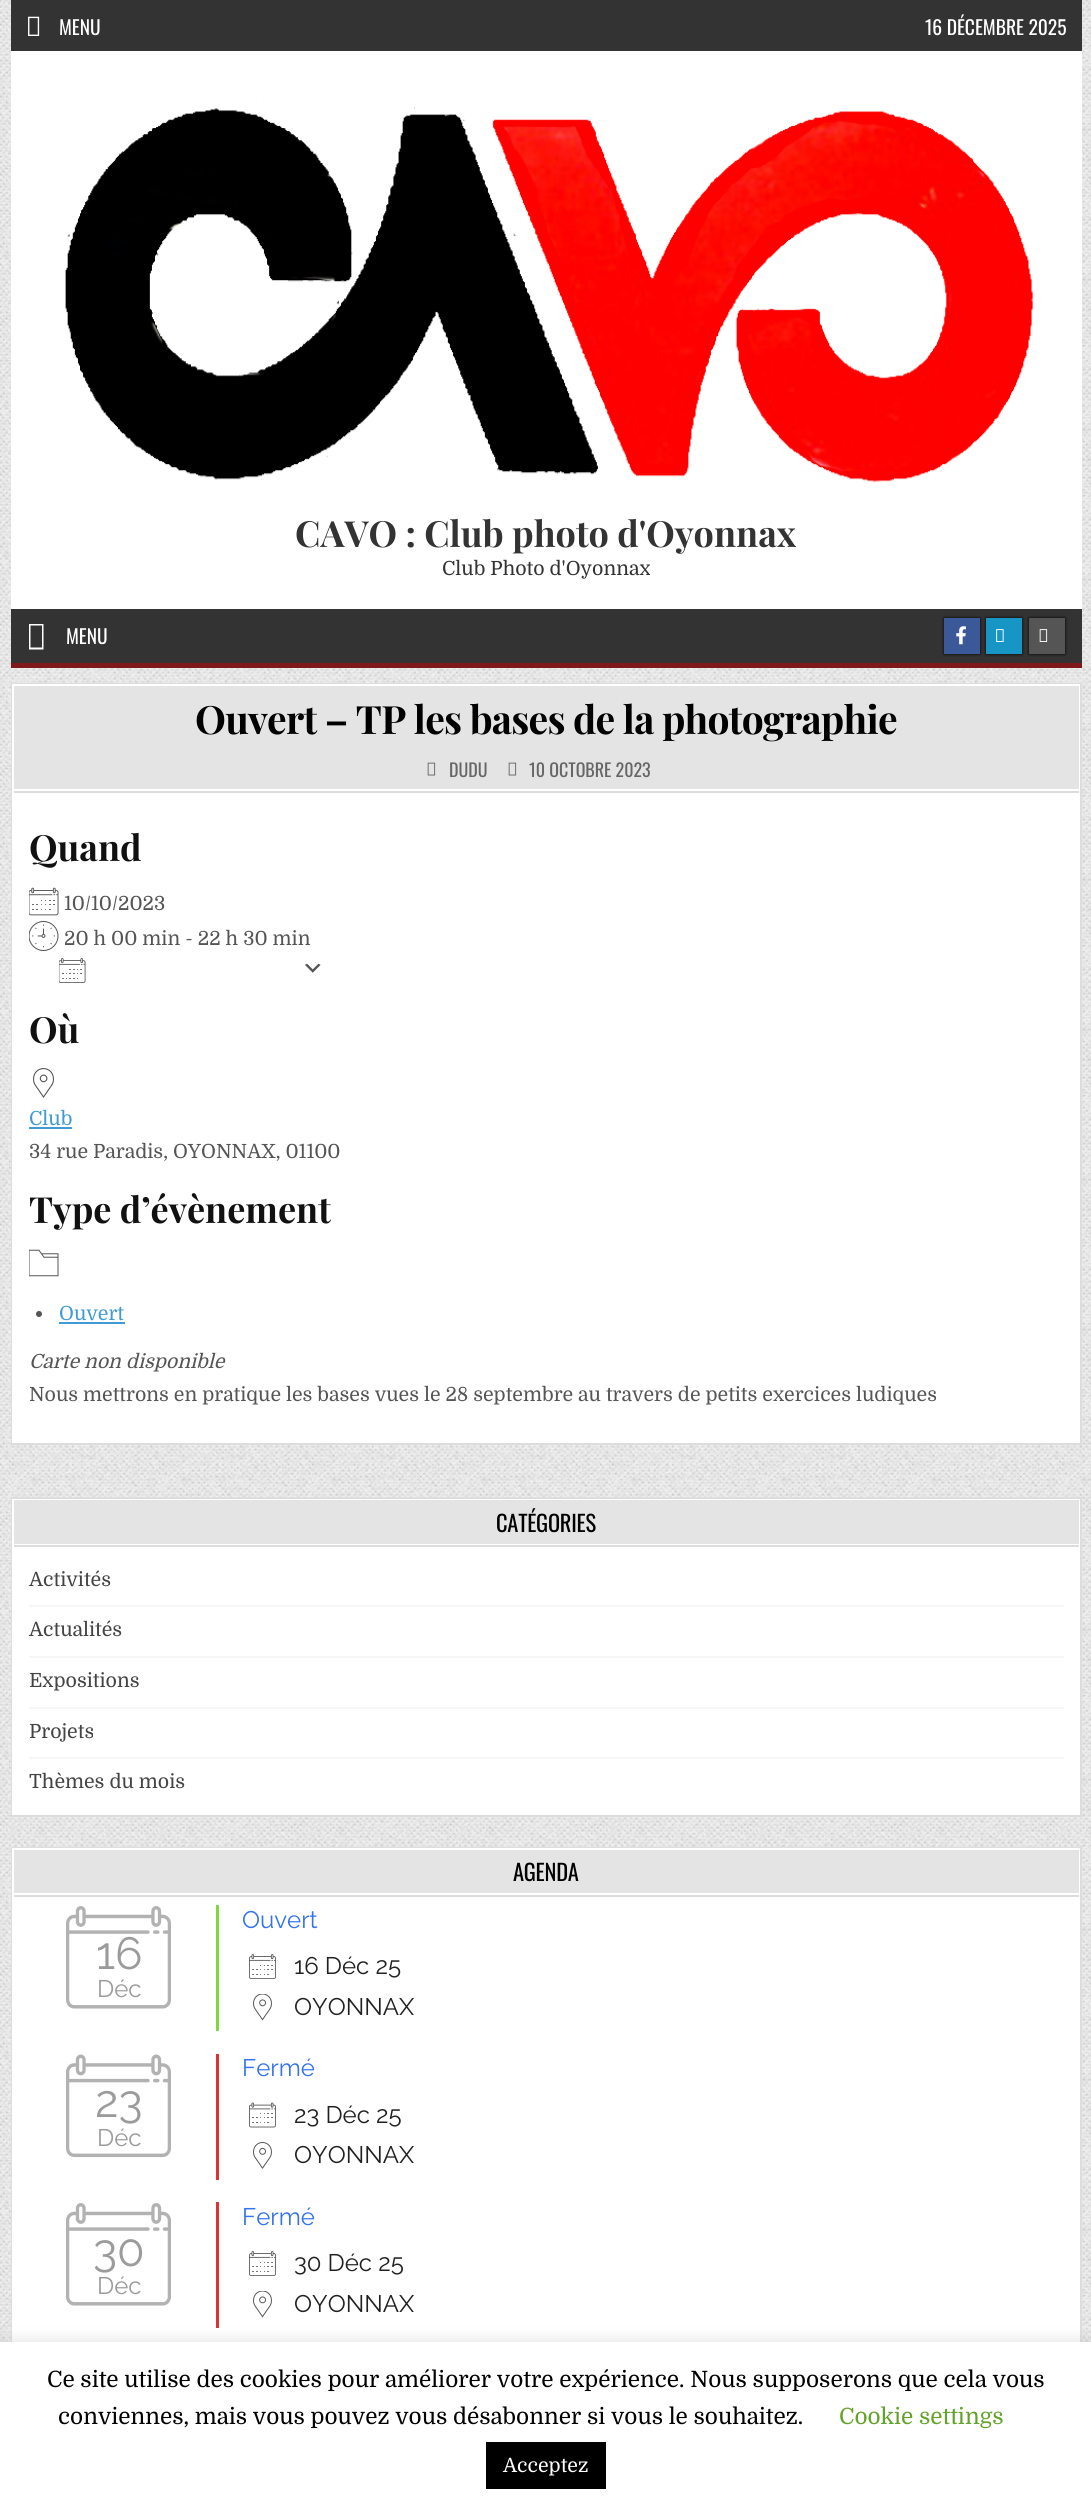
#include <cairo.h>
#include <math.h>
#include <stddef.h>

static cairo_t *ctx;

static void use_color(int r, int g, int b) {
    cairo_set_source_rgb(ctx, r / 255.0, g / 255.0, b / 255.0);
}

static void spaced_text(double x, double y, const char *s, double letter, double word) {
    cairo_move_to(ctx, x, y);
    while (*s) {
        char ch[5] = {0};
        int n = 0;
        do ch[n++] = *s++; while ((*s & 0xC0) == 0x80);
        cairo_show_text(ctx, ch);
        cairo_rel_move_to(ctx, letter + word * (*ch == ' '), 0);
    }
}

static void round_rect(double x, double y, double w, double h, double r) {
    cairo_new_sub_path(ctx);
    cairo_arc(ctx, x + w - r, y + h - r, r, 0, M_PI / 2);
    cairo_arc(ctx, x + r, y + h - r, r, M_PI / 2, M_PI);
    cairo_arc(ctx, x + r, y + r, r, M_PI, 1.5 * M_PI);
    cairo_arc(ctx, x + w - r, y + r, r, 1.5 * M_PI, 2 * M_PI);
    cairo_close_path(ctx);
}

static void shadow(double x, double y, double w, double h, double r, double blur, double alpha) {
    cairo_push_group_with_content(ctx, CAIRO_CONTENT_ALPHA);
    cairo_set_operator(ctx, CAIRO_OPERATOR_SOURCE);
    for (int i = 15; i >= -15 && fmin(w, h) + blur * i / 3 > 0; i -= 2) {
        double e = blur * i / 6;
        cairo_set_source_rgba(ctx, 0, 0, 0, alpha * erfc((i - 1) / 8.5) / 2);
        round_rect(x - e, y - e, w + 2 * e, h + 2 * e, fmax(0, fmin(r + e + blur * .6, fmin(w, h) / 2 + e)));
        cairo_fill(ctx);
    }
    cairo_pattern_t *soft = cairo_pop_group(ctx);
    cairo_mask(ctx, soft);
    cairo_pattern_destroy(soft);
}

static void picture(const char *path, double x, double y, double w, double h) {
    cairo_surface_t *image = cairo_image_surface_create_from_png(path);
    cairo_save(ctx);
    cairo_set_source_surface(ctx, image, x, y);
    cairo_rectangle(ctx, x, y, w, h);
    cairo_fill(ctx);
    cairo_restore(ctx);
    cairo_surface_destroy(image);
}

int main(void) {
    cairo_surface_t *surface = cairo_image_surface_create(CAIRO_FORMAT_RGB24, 1091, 2514);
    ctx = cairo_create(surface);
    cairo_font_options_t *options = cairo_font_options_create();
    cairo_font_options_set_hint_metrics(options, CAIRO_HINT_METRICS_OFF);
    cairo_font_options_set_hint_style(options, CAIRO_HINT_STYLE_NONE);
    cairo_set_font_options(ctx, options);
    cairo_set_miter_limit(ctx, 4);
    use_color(255, 255, 255);
    cairo_paint(ctx);
    picture("img1.png", 0, 0, 1091, 2342);
    use_color(51, 51, 51);
    cairo_rectangle(ctx, 11, 0, 1071, 51);
    cairo_fill(ctx);
    picture("img2.png", 28, 16, 12, 20);
    cairo_select_font_face(ctx, "Oswald", CAIRO_FONT_SLANT_NORMAL, CAIRO_FONT_WEIGHT_NORMAL);
    cairo_set_font_size(ctx, 19.5);
    use_color(255, 255, 255);
    cairo_move_to(ctx, 59, 35);
    cairo_show_text(ctx, "MENU");
    cairo_move_to(ctx, 925, 35);
    cairo_show_text(ctx, "16 DÉCEMBRE 2025");
    cairo_rectangle(ctx, 11, 51, 1071, 558);
    cairo_fill(ctx);
    picture("img3.png", 65, 99, 968, 384);
    cairo_select_font_face(ctx, "Playfair Display", CAIRO_FONT_SLANT_NORMAL, CAIRO_FONT_WEIGHT_BOLD);
    cairo_set_font_size(ctx, 36);
    use_color(51, 51, 51);
    cairo_move_to(ctx, 295, 547);
    cairo_show_text(ctx, "CAVO : Club photo d'Oyonnax");
    cairo_select_font_face(ctx, "Domine", CAIRO_FONT_SLANT_NORMAL, CAIRO_FONT_WEIGHT_NORMAL);
    cairo_set_font_size(ctx, 19.5);
    cairo_move_to(ctx, 442, 575);
    cairo_show_text(ctx, "Club Photo d'Oyonnax");
    cairo_rectangle(ctx, 11, 609, 1071, 54);
    cairo_fill(ctx);
    use_color(127, 24, 27);
    cairo_rectangle(ctx, 11, 663, 1071, 5);
    cairo_fill(ctx);
    use_color(255, 255, 255);
    cairo_new_path(ctx);
    cairo_move_to(ctx, 29, 649.5);
    cairo_line_to(ctx, 29, 624);
    cairo_line_to(ctx, 43.5, 624);
    cairo_line_to(ctx, 43.5, 649.5);
    cairo_close_path(ctx);
    cairo_move_to(ctx, 30.5, 647.5);
    cairo_line_to(ctx, 42, 647.5);
    cairo_line_to(ctx, 42, 625.5);
    cairo_line_to(ctx, 30.5, 625.5);
    cairo_close_path(ctx);
    cairo_fill(ctx);
    cairo_select_font_face(ctx, "Oswald", CAIRO_FONT_SLANT_NORMAL, CAIRO_FONT_WEIGHT_NORMAL);
    cairo_move_to(ctx, 66, 644);
    cairo_show_text(ctx, "MENU");
    use_color(0, 0, 0);
    shadow(944, 618, 36, 36, 0, 1.5, 1);
    use_color(59, 89, 152);
    cairo_rectangle(ctx, 944, 618, 36, 36);
    cairo_fill(ctx);
    picture("img4.png", 956, 626, 10, 19);
    use_color(0, 0, 0);
    shadow(986, 618, 36, 36, 0, 1.5, 1);
    use_color(23, 150, 198);
    cairo_rectangle(ctx, 986, 618, 36, 36);
    cairo_fill(ctx);
    picture("img5.png", 996, 629, 8, 13);
    use_color(0, 0, 0);
    shadow(1029, 618, 36, 36, 0, 1.5, 1);
    use_color(85, 85, 85);
    cairo_rectangle(ctx, 1029, 618, 36, 36);
    cairo_fill(ctx);
    picture("img6.png", 1039, 629, 9, 13);
    use_color(255, 255, 255);
    cairo_rectangle(ctx, 14, 793, 1064, 648);
    cairo_fill(ctx);
    cairo_rectangle(ctx, 12, 684, 1069, 760);
    use_color(221, 221, 221);
    cairo_stroke(ctx);
    cairo_rectangle(ctx, 13, 685, 1066, 757);
    use_color(255, 255, 255);
    cairo_stroke(ctx);
    use_color(228, 228, 228);
    cairo_rectangle(ctx, 14, 686, 1065, 103);
    cairo_fill(ctx);
    use_color(221, 221, 221);
    cairo_rectangle(ctx, 14, 791, 1065, 2);
    cairo_fill(ctx);
    use_color(255, 255, 255);
    cairo_rectangle(ctx, 14, 789, 1065, 2);
    cairo_fill(ctx);
    cairo_select_font_face(ctx, "Playfair Display", CAIRO_FONT_SLANT_NORMAL, CAIRO_FONT_WEIGHT_BOLD);
    cairo_set_font_size(ctx, 39);
    use_color(0, 0, 0);
    spaced_text(195, 734, "Ouvert – TP les bases de la photographie", -0.75, 0);
    picture("img7.png", 427, 762, 9, 14);
    cairo_select_font_face(ctx, "Oswald", CAIRO_FONT_SLANT_NORMAL, CAIRO_FONT_WEIGHT_NORMAL);
    cairo_set_font_size(ctx, 18);
    use_color(102, 102, 102);
    cairo_move_to(ctx, 449, 777);
    cairo_show_text(ctx, "DUDU");
    picture("img7.png", 508, 762, 9, 14);
    cairo_move_to(ctx, 529, 777);
    cairo_show_text(ctx, "10 OCTOBRE 2023");
    cairo_select_font_face(ctx, "Playfair Display", CAIRO_FONT_SLANT_NORMAL, CAIRO_FONT_WEIGHT_BOLD);
    cairo_set_font_size(ctx, 36);
    use_color(17, 17, 17);
    cairo_move_to(ctx, 29, 861);
    cairo_show_text(ctx, "Quand");
    picture("img8.png", 29, 887, 30, 29);
    cairo_select_font_face(ctx, "Domine", CAIRO_FONT_SLANT_NORMAL, CAIRO_FONT_WEIGHT_NORMAL);
    cairo_set_font_size(ctx, 19.5);
    use_color(85, 85, 85);
    cairo_move_to(ctx, 64, 910);
    cairo_show_text(ctx, "10/10/2023");
    picture("img9.png", 29, 921, 30, 30);
    cairo_move_to(ctx, 64, 945);
    cairo_show_text(ctx, "20 h 00 min - 22 h 30 min");
    picture("img10.png", 305, 963, 16, 10);
    picture("img11.png", 59, 958, 27, 25);
    cairo_select_font_face(ctx, "Playfair Display", CAIRO_FONT_SLANT_NORMAL, CAIRO_FONT_WEIGHT_BOLD);
    cairo_set_font_size(ctx, 36);
    use_color(17, 17, 17);
    cairo_move_to(ctx, 29, 1043);
    cairo_show_text(ctx, "Où");
    picture("img12.png", 33, 1068, 21, 30);
    cairo_select_font_face(ctx, "Domine", CAIRO_FONT_SLANT_NORMAL, CAIRO_FONT_WEIGHT_NORMAL);
    cairo_set_font_size(ctx, 19.5);
    use_color(64, 155, 212);
    cairo_move_to(ctx, 29, 1125);
    cairo_show_text(ctx, "Club");
    cairo_rectangle(ctx, 29, 1127, 43, 2);
    cairo_fill(ctx);
    use_color(85, 85, 85);
    cairo_move_to(ctx, 29, 1158);
    cairo_show_text(ctx, "34 rue Paradis, OYONNAX, 01100");
    cairo_select_font_face(ctx, "Playfair Display", CAIRO_FONT_SLANT_NORMAL, CAIRO_FONT_WEIGHT_BOLD);
    cairo_set_font_size(ctx, 36);
    use_color(17, 17, 17);
    cairo_move_to(ctx, 29, 1223);
    cairo_show_text(ctx, "Type d’évènement");
    picture("img13.png", 29, 1249, 30, 28);
    use_color(85, 85, 85);
    cairo_arc(ctx, 39, 1314, 3, 0, 2 * M_PI);
    cairo_fill(ctx);
    cairo_select_font_face(ctx, "Domine", CAIRO_FONT_SLANT_NORMAL, CAIRO_FONT_WEIGHT_NORMAL);
    cairo_set_font_size(ctx, 19.5);
    use_color(64, 155, 212);
    cairo_move_to(ctx, 59, 1320);
    cairo_show_text(ctx, "Ouvert");
    cairo_rectangle(ctx, 59, 1322, 66, 2);
    cairo_fill(ctx);
    cairo_select_font_face(ctx, "Domine", CAIRO_FONT_SLANT_ITALIC, CAIRO_FONT_WEIGHT_NORMAL);
    use_color(85, 85, 85);
    cairo_move_to(ctx, 29, 1368);
    cairo_show_text(ctx, "Carte non disponible");
    cairo_select_font_face(ctx, "Domine", CAIRO_FONT_SLANT_NORMAL, CAIRO_FONT_WEIGHT_NORMAL);
    cairo_move_to(ctx, 29, 1401);
    cairo_show_text(ctx, "Nous mettrons en pratique les bases vues le 28 septembre au travers de petits exercices ludiques");
    use_color(255, 255, 255);
    cairo_rectangle(ctx, 14, 1547, 1064, 266);
    cairo_fill(ctx);
    cairo_rectangle(ctx, 12, 1498, 1069, 318);
    use_color(221, 221, 221);
    cairo_stroke(ctx);
    cairo_rectangle(ctx, 13, 1500, 1066, 314);
    use_color(255, 255, 255);
    cairo_stroke(ctx);
    use_color(228, 228, 228);
    cairo_rectangle(ctx, 14, 1500, 1065, 44);
    cairo_fill(ctx);
    use_color(221, 221, 221);
    cairo_rectangle(ctx, 14, 1545, 1065, 2);
    cairo_fill(ctx);
    use_color(255, 255, 255);
    cairo_rectangle(ctx, 14, 1544, 1065, 1);
    cairo_fill(ctx);
    cairo_select_font_face(ctx, "Oswald", CAIRO_FONT_SLANT_NORMAL, CAIRO_FONT_WEIGHT_NORMAL);
    cairo_set_font_size(ctx, 22.5);
    use_color(0, 0, 0);
    spaced_text(496, 1532, "CATÉGORIES", -0.25, 0);
    use_color(246, 246, 246);
    cairo_rectangle(ctx, 29, 1605, 1035, 2);
    cairo_fill(ctx);
    cairo_select_font_face(ctx, "Domine", CAIRO_FONT_SLANT_NORMAL, CAIRO_FONT_WEIGHT_NORMAL);
    cairo_set_font_size(ctx, 19.5);
    use_color(68, 68, 68);
    cairo_move_to(ctx, 29, 1586);
    cairo_show_text(ctx, "Activités");
    use_color(246, 246, 246);
    cairo_rectangle(ctx, 29, 1656, 1035, 2);
    cairo_fill(ctx);
    use_color(68, 68, 68);
    cairo_move_to(ctx, 29, 1636);
    cairo_show_text(ctx, "Actualités");
    use_color(246, 246, 246);
    cairo_rectangle(ctx, 29, 1707, 1035, 2);
    cairo_fill(ctx);
    use_color(68, 68, 68);
    cairo_move_to(ctx, 29, 1687);
    cairo_show_text(ctx, "Expositions");
    use_color(246, 246, 246);
    cairo_rectangle(ctx, 29, 1757, 1035, 2);
    cairo_fill(ctx);
    use_color(68, 68, 68);
    cairo_move_to(ctx, 29, 1738);
    cairo_show_text(ctx, "Projets");
    cairo_move_to(ctx, 29, 1788);
    cairo_show_text(ctx, "Thèmes du mois");
    use_color(255, 255, 255);
    cairo_rectangle(ctx, 14, 1897, 1064, 445);
    cairo_fill(ctx);
    cairo_rectangle(ctx, 12, 1848, 1069, 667);
    use_color(221, 221, 221);
    cairo_stroke(ctx);
    cairo_rectangle(ctx, 13, 1849, 1066, 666);
    use_color(255, 255, 255);
    cairo_stroke(ctx);
    use_color(228, 228, 228);
    cairo_rectangle(ctx, 14, 1850, 1065, 43);
    cairo_fill(ctx);
    use_color(221, 221, 221);
    cairo_rectangle(ctx, 14, 1895, 1065, 2);
    cairo_fill(ctx);
    use_color(255, 255, 255);
    cairo_rectangle(ctx, 14, 1893, 1065, 2);
    cairo_fill(ctx);
    cairo_select_font_face(ctx, "Oswald", CAIRO_FONT_SLANT_NORMAL, CAIRO_FONT_WEIGHT_NORMAL);
    cairo_set_font_size(ctx, 22.5);
    use_color(0, 0, 0);
    spaced_text(513, 1881, "AGENDA", -0.25, 0);
    picture("img14.png", 66, 1906, 105, 103);
    cairo_select_font_face(ctx, "Raleway", CAIRO_FONT_SLANT_NORMAL, CAIRO_FONT_WEIGHT_NORMAL);
    cairo_set_font_size(ctx, 45);
    use_color(155, 155, 155);
    cairo_move_to(ctx, 96, 1969);
    cairo_show_text(ctx, "16");
    cairo_set_font_size(ctx, 24);
    cairo_move_to(ctx, 97, 1997);
    cairo_show_text(ctx, "Déc");
    use_color(129, 215, 66);
    cairo_rectangle(ctx, 216, 1905, 3, 126);
    cairo_fill(ctx);
    use_color(51, 114, 240);
    cairo_move_to(ctx, 242, 1928);
    cairo_show_text(ctx, "Ouvert");
    picture("img15.png", 249, 1954, 27, 25);
    use_color(33, 33, 33);
    cairo_move_to(ctx, 294, 1974);
    cairo_show_text(ctx, "16 Déc 25");
    picture("img16.png", 253, 1994, 19, 27);
    cairo_move_to(ctx, 294, 2015);
    cairo_show_text(ctx, "OYONNAX");
    picture("img17.png", 66, 2054, 105, 104);
    cairo_set_font_size(ctx, 45);
    use_color(155, 155, 155);
    cairo_move_to(ctx, 95, 2117);
    cairo_show_text(ctx, "23");
    cairo_set_font_size(ctx, 24);
    cairo_move_to(ctx, 97, 2146);
    cairo_show_text(ctx, "Déc");
    use_color(221, 51, 51);
    cairo_rectangle(ctx, 216, 2054, 3, 126);
    cairo_fill(ctx);
    use_color(51, 114, 240);
    cairo_move_to(ctx, 242, 2076);
    cairo_show_text(ctx, "Fermé");
    picture("img18.png", 249, 2102, 27, 26);
    use_color(33, 33, 33);
    cairo_move_to(ctx, 294, 2123);
    cairo_show_text(ctx, "23 Déc 25");
    picture("img19.png", 253, 2142, 19, 27);
    cairo_move_to(ctx, 294, 2163);
    cairo_show_text(ctx, "OYONNAX");
    picture("img14.png", 66, 2203, 105, 103);
    cairo_set_font_size(ctx, 45);
    use_color(155, 155, 155);
    cairo_move_to(ctx, 93, 2266);
    cairo_show_text(ctx, "30");
    cairo_set_font_size(ctx, 24);
    cairo_move_to(ctx, 97, 2294);
    cairo_show_text(ctx, "Déc");
    use_color(221, 51, 51);
    cairo_rectangle(ctx, 216, 2202, 3, 126);
    cairo_fill(ctx);
    use_color(51, 114, 240);
    cairo_move_to(ctx, 242, 2225);
    cairo_show_text(ctx, "Fermé");
    picture("img15.png", 249, 2251, 27, 25);
    use_color(33, 33, 33);
    cairo_move_to(ctx, 294, 2271);
    cairo_show_text(ctx, "30 Déc 25");
    picture("img16.png", 253, 2291, 19, 27);
    cairo_move_to(ctx, 294, 2312);
    cairo_show_text(ctx, "OYONNAX");
    use_color(172, 171, 171);
    shadow(0, 2340, 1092, 173, 0, 7.5, 0.3);
    use_color(255, 255, 255);
    cairo_rectangle(ctx, 0, 2342, 1091, 172);
    cairo_fill(ctx);
    cairo_select_font_face(ctx, "Domine", CAIRO_FONT_SLANT_NORMAL, CAIRO_FONT_WEIGHT_NORMAL);
    cairo_set_font_size(ctx, 22.5);
    use_color(0, 0, 0);
    cairo_move_to(ctx, 47, 2387);
    cairo_show_text(ctx, "Ce site utilise des cookies pour améliorer votre expérience. Nous supposerons que cela vous");
    cairo_move_to(ctx, 58, 2424);
    cairo_show_text(ctx, "conviennes, mais vous pouvez vous désabonner si vous le souhaitez.");
    use_color(98, 163, 41);
    cairo_move_to(ctx, 839, 2424);
    cairo_show_text(ctx, "Cookie settings");
    use_color(0, 0, 0);
    cairo_rectangle(ctx, 486, 2442, 120, 47);
    cairo_fill(ctx);
    cairo_set_font_size(ctx, 19.5);
    use_color(255, 255, 255);
    cairo_move_to(ctx, 503, 2472);
    cairo_show_text(ctx, "Acceptez");
    cairo_surface_write_to_png(surface, "result.png");
    cairo_font_options_destroy(options);
    cairo_destroy(ctx);
    cairo_surface_destroy(surface);
    return 0;
}
